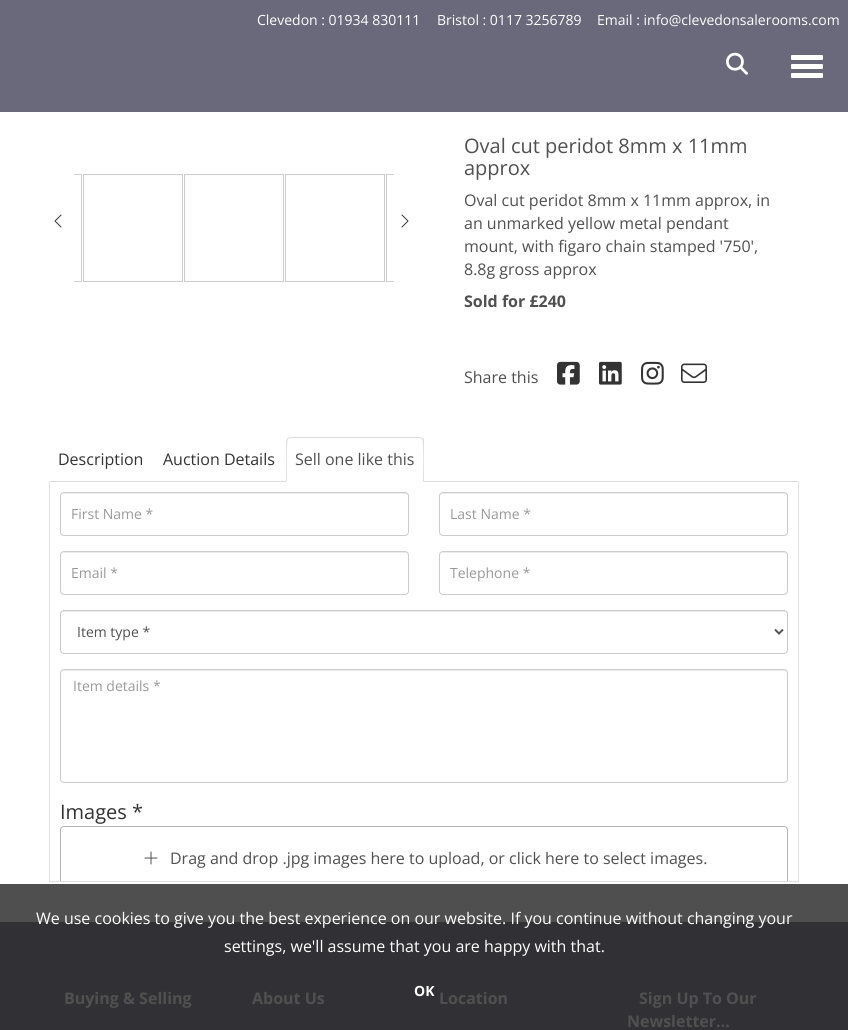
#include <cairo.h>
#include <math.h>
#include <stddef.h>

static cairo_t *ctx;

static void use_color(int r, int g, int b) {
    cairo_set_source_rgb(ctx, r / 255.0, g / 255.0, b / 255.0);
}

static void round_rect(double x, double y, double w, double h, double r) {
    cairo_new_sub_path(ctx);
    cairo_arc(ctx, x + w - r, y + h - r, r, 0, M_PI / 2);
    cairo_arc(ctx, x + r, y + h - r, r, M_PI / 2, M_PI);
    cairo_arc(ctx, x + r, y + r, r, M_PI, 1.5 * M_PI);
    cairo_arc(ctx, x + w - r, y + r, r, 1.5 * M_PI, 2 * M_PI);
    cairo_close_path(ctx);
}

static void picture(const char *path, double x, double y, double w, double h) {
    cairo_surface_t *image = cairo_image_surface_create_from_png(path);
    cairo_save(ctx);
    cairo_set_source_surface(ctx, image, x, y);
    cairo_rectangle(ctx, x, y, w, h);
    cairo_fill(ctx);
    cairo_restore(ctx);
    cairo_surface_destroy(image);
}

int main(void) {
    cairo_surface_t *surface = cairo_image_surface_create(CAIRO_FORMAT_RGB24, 848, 1030);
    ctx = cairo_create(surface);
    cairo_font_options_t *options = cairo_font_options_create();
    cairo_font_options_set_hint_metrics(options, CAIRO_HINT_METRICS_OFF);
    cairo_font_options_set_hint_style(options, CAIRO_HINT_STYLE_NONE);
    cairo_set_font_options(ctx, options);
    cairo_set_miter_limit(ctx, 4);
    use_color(255, 255, 255);
    cairo_paint(ctx);
    use_color(79, 79, 79);
    cairo_rectangle(ctx, 0, 884, 848, 38);
    cairo_fill(ctx);
    use_color(106, 105, 123);
    cairo_rectangle(ctx, 0, 0, 848, 112);
    cairo_fill(ctx);
    picture("img1.png", 726, 52, 22, 23);
    use_color(255, 255, 255);
    round_rect(791, 55, 32, 5, 1);
    cairo_fill(ctx);
    round_rect(791, 64, 32, 5, 1);
    cairo_fill(ctx);
    round_rect(791, 73, 32, 5, 1);
    cairo_fill(ctx);
    cairo_select_font_face(ctx, "Open Sans", CAIRO_FONT_SLANT_NORMAL, CAIRO_FONT_WEIGHT_NORMAL);
    cairo_set_font_size(ctx, 14);
    cairo_move_to(ctx, 257, 25);
    cairo_show_text(ctx, "Clevedon : 01934 830111");
    cairo_move_to(ctx, 437, 25);
    cairo_show_text(ctx, "Bristol : 0117 3256789");
    cairo_move_to(ctx, 597, 25);
    cairo_show_text(ctx, "Email : info@clevedonsalerooms.com");
    picture("img2.png", 54, 214, 8, 14);
    cairo_save(ctx);
    cairo_rectangle(ctx, 74, 174, 320, 108);
    cairo_clip(ctx);
    cairo_rectangle(ctx, -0.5, 174.5, 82, 107);
    use_color(205, 205, 205);
    cairo_set_line_width(ctx, 1);
    cairo_stroke(ctx);
    cairo_restore(ctx);
    cairo_rectangle(ctx, 83.5, 174.5, 99, 107);
    use_color(205, 205, 205);
    cairo_set_line_width(ctx, 1);
    cairo_stroke(ctx);
    cairo_rectangle(ctx, 184.5, 174.5, 99, 107);
    cairo_stroke(ctx);
    cairo_rectangle(ctx, 285.5, 174.5, 99, 107);
    cairo_stroke(ctx);
    picture("img3.png", 401, 214, 8, 14);
    cairo_save(ctx);
    cairo_rectangle(ctx, 74, 174, 320, 108);
    cairo_clip(ctx);
    cairo_rectangle(ctx, 386.5, 174.5, 99, 107);
    cairo_stroke(ctx);
    cairo_restore(ctx);
    cairo_set_font_size(ctx, 20);
    use_color(80, 80, 80);
    cairo_move_to(ctx, 464, 153);
    cairo_show_text(ctx, "Oval cut peridot 8mm x 11mm");
    cairo_move_to(ctx, 464, 175);
    cairo_show_text(ctx, "approx");
    cairo_set_font_size(ctx, 16);
    cairo_move_to(ctx, 464, 206);
    cairo_show_text(ctx, "Oval cut peridot 8mm x 11mm approx, in");
    cairo_move_to(ctx, 464, 229);
    cairo_show_text(ctx, "an unmarked yellow metal pendant");
    cairo_move_to(ctx, 464, 252);
    cairo_show_text(ctx, "mount, with figaro chain stamped '750',");
    cairo_move_to(ctx, 464, 275);
    cairo_show_text(ctx, "8.8g gross approx");
    cairo_select_font_face(ctx, "Open Sans", CAIRO_FONT_SLANT_NORMAL, CAIRO_FONT_WEIGHT_BOLD);
    cairo_move_to(ctx, 464, 307);
    cairo_show_text(ctx, "Sold for £240");
    cairo_select_font_face(ctx, "Open Sans", CAIRO_FONT_SLANT_NORMAL, CAIRO_FONT_WEIGHT_NORMAL);
    cairo_move_to(ctx, 464, 383);
    cairo_show_text(ctx, "Share this");
    picture("img4.png", 557, 361, 23, 24);
    picture("img5.png", 599, 361, 23, 24);
    picture("img6.png", 641, 361, 23, 24);
    picture("img7.png", 681, 363, 26, 20);
    use_color(221, 221, 221);
    cairo_rectangle(ctx, 49, 481, 750, 1);
    cairo_fill(ctx);
    use_color(51, 51, 51);
    cairo_move_to(ctx, 58, 465);
    cairo_show_text(ctx, "Description");
    cairo_move_to(ctx, 163, 465);
    cairo_show_text(ctx, "Auction Details");
    use_color(255, 255, 255);
    cairo_new_path(ctx);
    cairo_move_to(ctx, 290, 437);
    cairo_line_to(ctx, 420, 437);
    cairo_curve_to(ctx, 422, 437, 424, 439, 424, 441);
    cairo_line_to(ctx, 424, 482);
    cairo_line_to(ctx, 286, 482);
    cairo_line_to(ctx, 286, 441);
    cairo_curve_to(ctx, 286, 439, 288, 437, 290, 437);
    cairo_close_path(ctx);
    cairo_fill(ctx);
    use_color(221, 221, 221);
    cairo_new_path(ctx);
    cairo_move_to(ctx, 290, 437);
    cairo_line_to(ctx, 287, 438);
    cairo_line_to(ctx, 288, 439);
    cairo_line_to(ctx, 290, 438);
    cairo_line_to(ctx, 420, 438);
    cairo_line_to(ctx, 422, 439);
    cairo_line_to(ctx, 423, 438);
    cairo_line_to(ctx, 420, 437);
    cairo_close_path(ctx);
    cairo_fill(ctx);
    cairo_new_path(ctx);
    cairo_move_to(ctx, 424, 482);
    cairo_line_to(ctx, 424, 441);
    cairo_curve_to(ctx, 424, 440, 424, 439, 423, 438);
    cairo_line_to(ctx, 422, 439);
    cairo_curve_to(ctx, 424, 441, 423, 476, 423, 481);
    cairo_close_path(ctx);
    cairo_fill(ctx);
    cairo_new_path(ctx);
    cairo_move_to(ctx, 286, 482);
    cairo_line_to(ctx, 287, 481);
    cairo_curve_to(ctx, 287, 476, 286, 441, 288, 439);
    cairo_line_to(ctx, 287, 438);
    cairo_line_to(ctx, 286, 441);
    cairo_close_path(ctx);
    cairo_fill(ctx);
    use_color(80, 80, 80);
    cairo_move_to(ctx, 295, 465);
    cairo_show_text(ctx, "Sell one like this");
    use_color(224, 224, 224);
    cairo_rectangle(ctx, 798, 482, 1, 400);
    cairo_fill(ctx);
    cairo_rectangle(ctx, 49, 881, 750, 1);
    cairo_fill(ctx);
    cairo_rectangle(ctx, 49, 482, 1, 400);
    cairo_fill(ctx);
    use_color(236, 236, 236);
    cairo_new_path(ctx);
    cairo_move_to(ctx, 64, 494);
    cairo_line_to(ctx, 405, 494);
    cairo_curve_to(ctx, 407, 494, 408, 495, 408, 497);
    cairo_curve_to(ctx, 408, 495, 407, 493, 405, 493);
    cairo_line_to(ctx, 64, 493);
    cairo_line_to(ctx, 62, 494);
    cairo_line_to(ctx, 61, 497);
    cairo_curve_to(ctx, 61, 495, 62, 494, 64, 494);
    cairo_close_path(ctx);
    cairo_fill(ctx);
    round_rect(60.5, 492.5, 348, 43, 3.5);
    use_color(204, 204, 204);
    cairo_stroke(ctx);
    cairo_set_font_size(ctx, 14);
    use_color(153, 153, 153);
    cairo_move_to(ctx, 71, 519);
    cairo_show_text(ctx, "First Name *");
    use_color(236, 236, 236);
    cairo_new_path(ctx);
    cairo_move_to(ctx, 443, 494);
    cairo_line_to(ctx, 784, 494);
    cairo_curve_to(ctx, 786, 494, 787, 495, 787, 497);
    cairo_curve_to(ctx, 787, 495, 786, 493, 784, 493);
    cairo_line_to(ctx, 443, 493);
    cairo_line_to(ctx, 441, 494);
    cairo_line_to(ctx, 440, 497);
    cairo_curve_to(ctx, 440, 495, 441, 494, 443, 494);
    cairo_close_path(ctx);
    cairo_fill(ctx);
    round_rect(439.5, 492.5, 348, 43, 3.5);
    use_color(204, 204, 204);
    cairo_stroke(ctx);
    use_color(153, 153, 153);
    cairo_move_to(ctx, 450, 519);
    cairo_show_text(ctx, "Last Name *");
    use_color(236, 236, 236);
    cairo_new_path(ctx);
    cairo_move_to(ctx, 64, 553);
    cairo_line_to(ctx, 405, 553);
    cairo_curve_to(ctx, 407, 553, 408, 554, 408, 556);
    cairo_curve_to(ctx, 408, 554, 407, 552, 405, 552);
    cairo_line_to(ctx, 64, 552);
    cairo_line_to(ctx, 62, 553);
    cairo_line_to(ctx, 61, 556);
    cairo_curve_to(ctx, 61, 554, 62, 553, 64, 553);
    cairo_close_path(ctx);
    cairo_fill(ctx);
    round_rect(60.5, 551.5, 348, 43, 3.5);
    use_color(204, 204, 204);
    cairo_stroke(ctx);
    use_color(153, 153, 153);
    cairo_move_to(ctx, 71, 578);
    cairo_show_text(ctx, "Email *");
    use_color(236, 236, 236);
    cairo_new_path(ctx);
    cairo_move_to(ctx, 443, 553);
    cairo_line_to(ctx, 784, 553);
    cairo_curve_to(ctx, 786, 553, 787, 554, 787, 556);
    cairo_curve_to(ctx, 787, 554, 786, 552, 784, 552);
    cairo_line_to(ctx, 443, 552);
    cairo_line_to(ctx, 441, 553);
    cairo_line_to(ctx, 440, 556);
    cairo_curve_to(ctx, 440, 554, 441, 553, 443, 553);
    cairo_close_path(ctx);
    cairo_fill(ctx);
    round_rect(439.5, 551.5, 348, 43, 3.5);
    use_color(204, 204, 204);
    cairo_stroke(ctx);
    use_color(153, 153, 153);
    cairo_move_to(ctx, 450, 578);
    cairo_show_text(ctx, "Telephone *");
    use_color(236, 236, 236);
    cairo_new_path(ctx);
    cairo_move_to(ctx, 64, 612);
    cairo_line_to(ctx, 784, 612);
    cairo_curve_to(ctx, 786, 612, 787, 613, 787, 615);
    cairo_curve_to(ctx, 787, 613, 786, 611, 784, 611);
    cairo_line_to(ctx, 64, 611);
    cairo_curve_to(ctx, 62, 611, 61, 613, 61, 615);
    cairo_curve_to(ctx, 61, 613, 62, 612, 64, 612);
    cairo_close_path(ctx);
    cairo_fill(ctx);
    round_rect(60.5, 610.5, 727, 43, 3.5);
    use_color(204, 204, 204);
    cairo_stroke(ctx);
    cairo_new_path(ctx);
    cairo_move_to(ctx, 775, 629.5);
    cairo_line_to(ctx, 779, 633.5);
    cairo_line_to(ctx, 783, 629.5);
    use_color(85, 85, 85);
    cairo_set_line_width(ctx, 2);
    cairo_stroke(ctx);
    use_color(80, 80, 80);
    cairo_move_to(ctx, 77, 637);
    cairo_show_text(ctx, "Item type *");
    use_color(236, 236, 236);
    cairo_new_path(ctx);
    cairo_move_to(ctx, 64, 671);
    cairo_line_to(ctx, 784, 671);
    cairo_curve_to(ctx, 786, 671, 787, 672, 787, 674);
    cairo_curve_to(ctx, 787, 672, 786, 670, 784, 670);
    cairo_line_to(ctx, 64, 670);
    cairo_curve_to(ctx, 62, 670, 61, 672, 61, 674);
    cairo_curve_to(ctx, 61, 672, 62, 671, 64, 671);
    cairo_close_path(ctx);
    cairo_fill(ctx);
    round_rect(60.5, 669.5, 727, 113, 3.5);
    use_color(204, 204, 204);
    cairo_set_line_width(ctx, 1);
    cairo_stroke(ctx);
    use_color(153, 153, 153);
    cairo_move_to(ctx, 73, 691);
    cairo_show_text(ctx, "Item details *");
    cairo_set_font_size(ctx, 20);
    use_color(51, 51, 51);
    cairo_move_to(ctx, 60, 819);
    cairo_show_text(ctx, "Images *");
    use_color(49, 49, 53);
    cairo_rectangle(ctx, 0, 922, 848, 108);
    cairo_fill(ctx);
    cairo_save(ctx);
    cairo_rectangle(ctx, 50, 482, 748, 399);
    cairo_clip(ctx);
    round_rect(60.5, 826.5, 727, 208, 3.5);
    use_color(179, 179, 179);
    cairo_stroke(ctx);
    cairo_restore(ctx);
    picture("img8.png", 144, 851, 14, 14);
    cairo_set_font_size(ctx, 16);
    use_color(80, 80, 80);
    cairo_move_to(ctx, 170, 864);
    cairo_show_text(ctx, "Drag and drop .jpg images here to upload, or click here to select images.");
    use_color(255, 255, 255);
    cairo_move_to(ctx, 36, 924);
    cairo_show_text(ctx, "We use cookies to give you the best experience on our website. If you continue without changing your");
    cairo_move_to(ctx, 224, 952);
    cairo_show_text(ctx, "settings, we'll assume that you are happy with that.");
    cairo_select_font_face(ctx, "Open Sans", CAIRO_FONT_SLANT_NORMAL, CAIRO_FONT_WEIGHT_BOLD);
    cairo_set_font_size(ctx, 14);
    cairo_move_to(ctx, 414, 996);
    cairo_show_text(ctx, "OK");
    cairo_set_font_size(ctx, 16);
    use_color(80, 80, 80);
    cairo_move_to(ctx, 64, 1004);
    cairo_show_text(ctx, "Buying & Selling");
    cairo_move_to(ctx, 252, 1004);
    cairo_show_text(ctx, "About Us");
    cairo_move_to(ctx, 439, 1004);
    cairo_show_text(ctx, "Location");
    cairo_move_to(ctx, 639, 1004);
    cairo_show_text(ctx, "Sign Up To Our");
    cairo_move_to(ctx, 627, 1027);
    cairo_show_text(ctx, "Newsletter...");
    cairo_surface_write_to_png(surface, "result.png");
    cairo_font_options_destroy(options);
    cairo_destroy(ctx);
    cairo_surface_destroy(surface);
    return 0;
}
